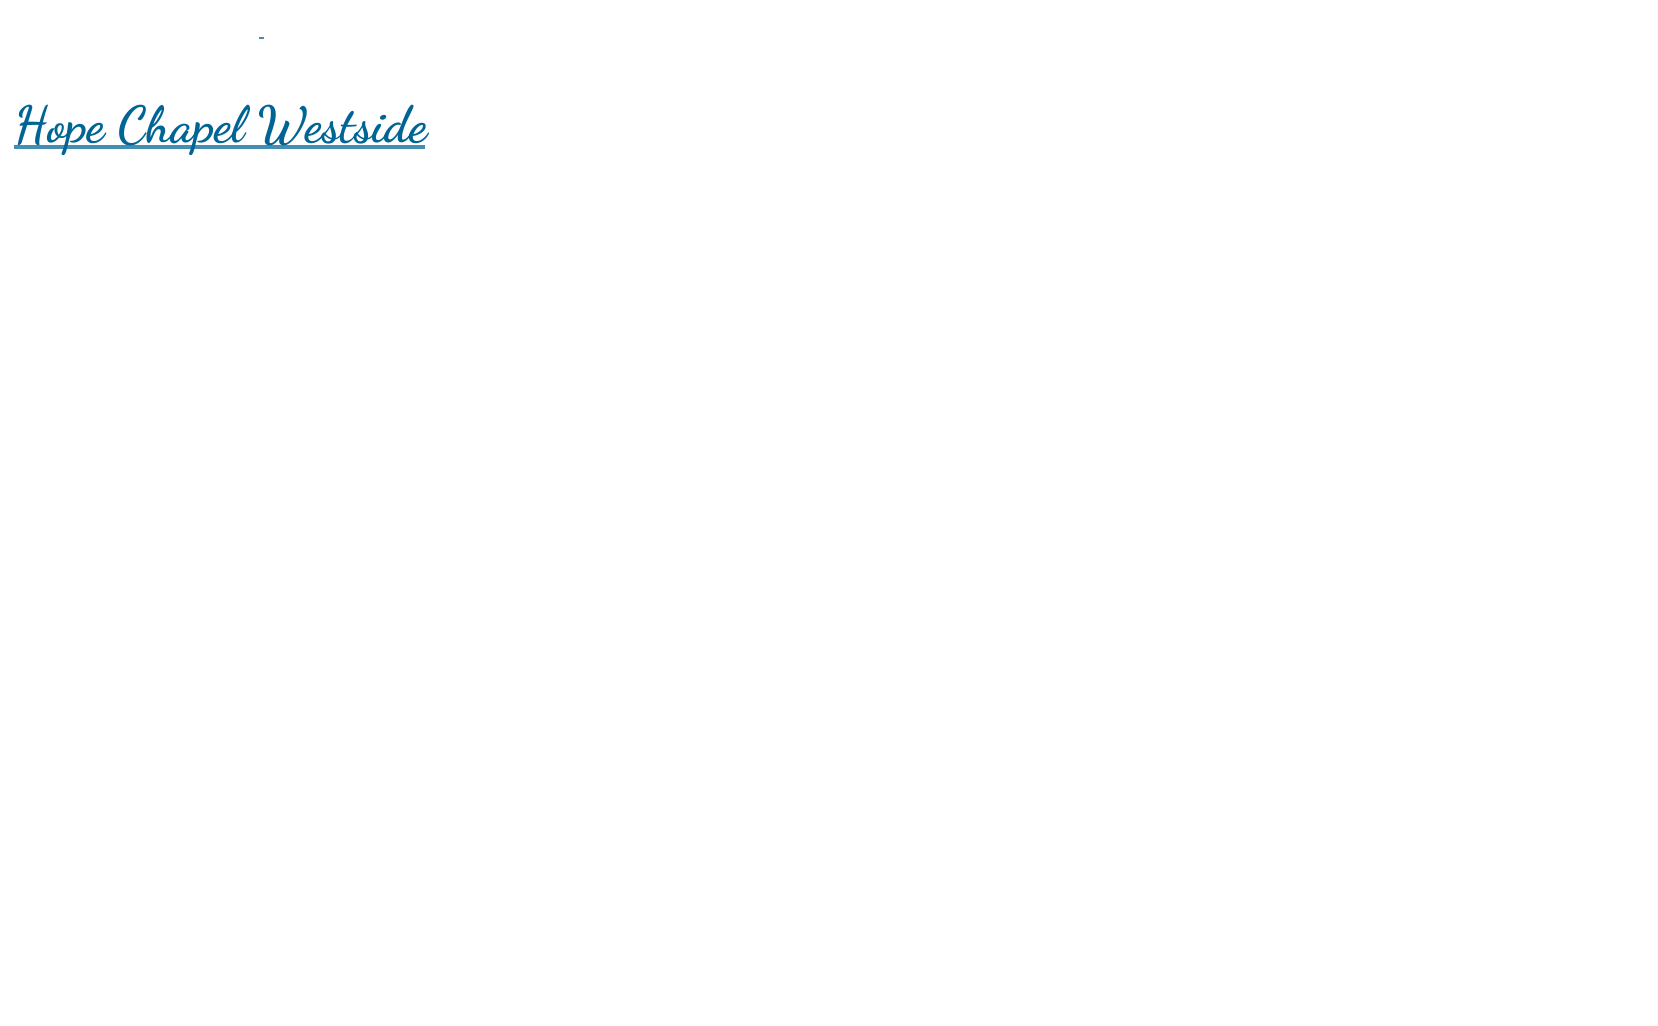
#include <cairo.h>
#include <math.h>
#include <stddef.h>

static cairo_t *ctx;

static void use_color(int r, int g, int b) {
    cairo_set_source_rgb(ctx, r / 255.0, g / 255.0, b / 255.0);
}

int main(void) {
    cairo_surface_t *surface = cairo_image_surface_create(CAIRO_FORMAT_RGB24, 1658, 1026);
    ctx = cairo_create(surface);
    cairo_font_options_t *options = cairo_font_options_create();
    cairo_font_options_set_hint_metrics(options, CAIRO_HINT_METRICS_OFF);
    cairo_font_options_set_hint_style(options, CAIRO_HINT_STYLE_NONE);
    cairo_set_font_options(ctx, options);
    cairo_set_miter_limit(ctx, 4);
    use_color(255, 255, 255);
    cairo_paint(ctx);
    use_color(69, 142, 177);
    cairo_rectangle(ctx, 259, 37, 5, 2);
    cairo_fill(ctx);
    cairo_rectangle(ctx, 14, 145, 411, 4);
    cairo_fill(ctx);
    cairo_select_font_face(ctx, "Dancing Script", CAIRO_FONT_SLANT_NORMAL, CAIRO_FONT_WEIGHT_BOLD);
    cairo_set_font_size(ctx, 50.5);
    use_color(0, 100, 148);
    cairo_move_to(ctx, 14, 141);
    cairo_show_text(ctx, "Hope Chapel Westside");
    cairo_surface_write_to_png(surface, "result.png");
    cairo_font_options_destroy(options);
    cairo_destroy(ctx);
    cairo_surface_destroy(surface);
    return 0;
}
